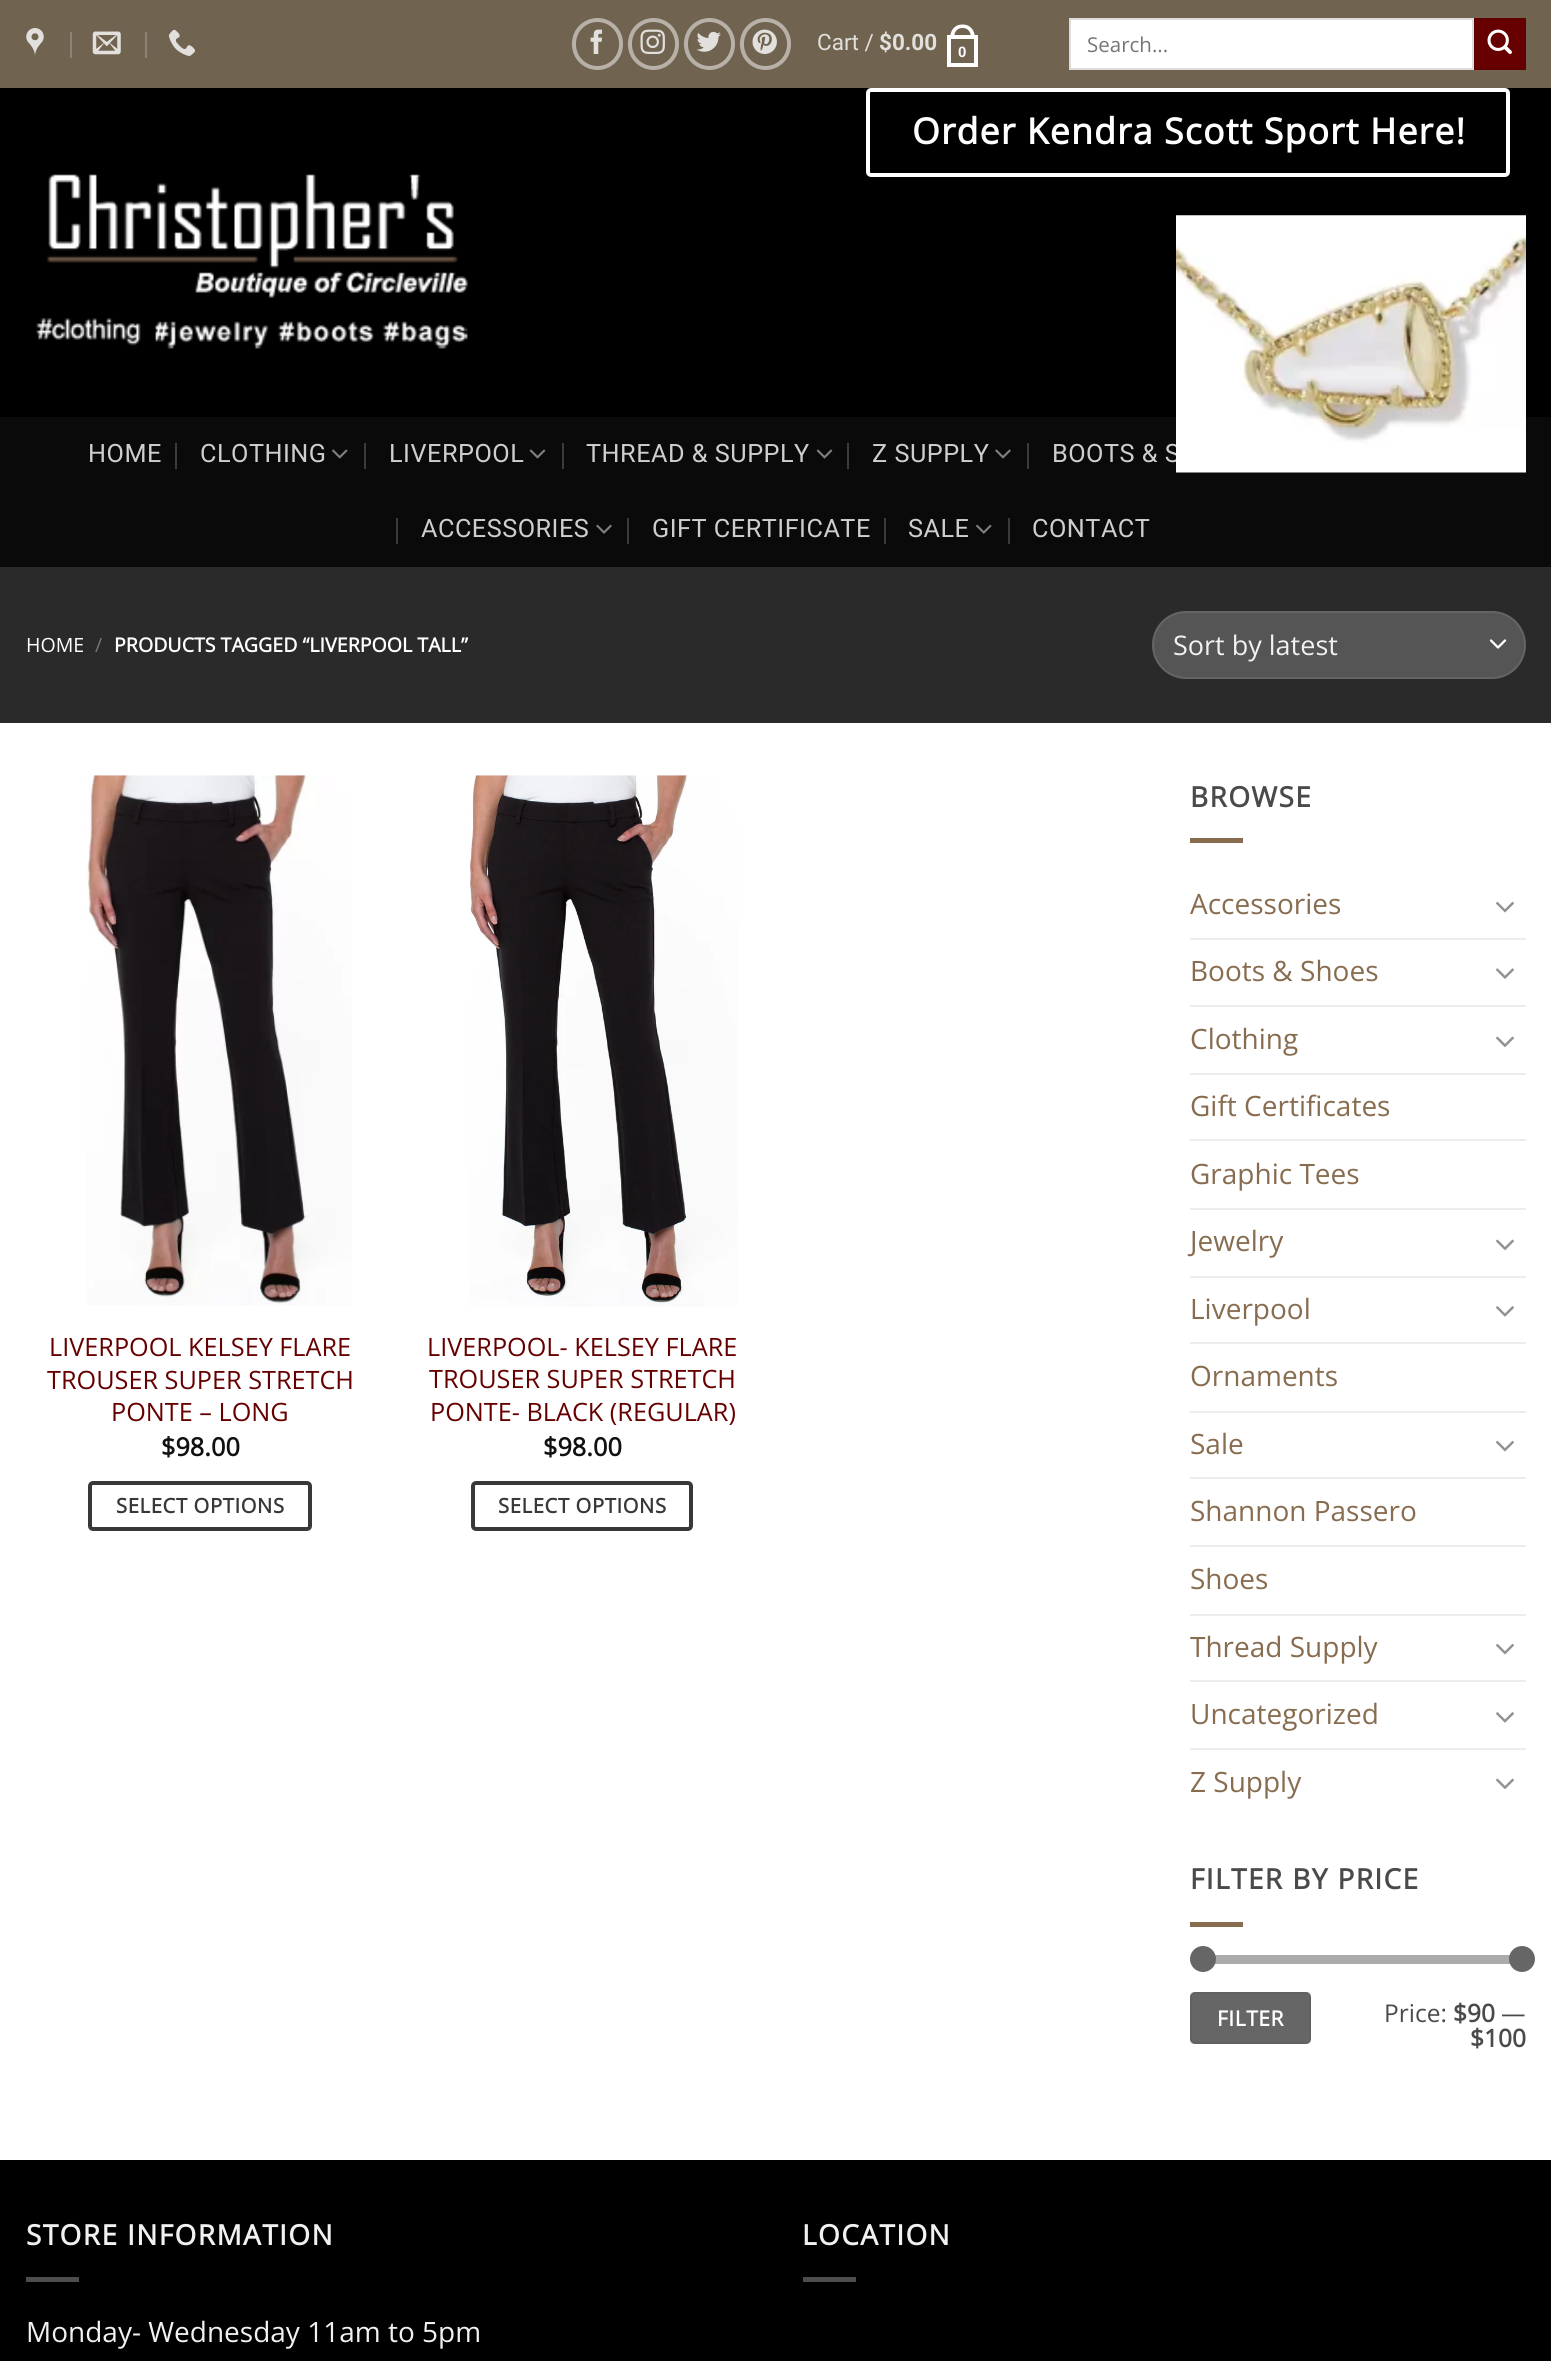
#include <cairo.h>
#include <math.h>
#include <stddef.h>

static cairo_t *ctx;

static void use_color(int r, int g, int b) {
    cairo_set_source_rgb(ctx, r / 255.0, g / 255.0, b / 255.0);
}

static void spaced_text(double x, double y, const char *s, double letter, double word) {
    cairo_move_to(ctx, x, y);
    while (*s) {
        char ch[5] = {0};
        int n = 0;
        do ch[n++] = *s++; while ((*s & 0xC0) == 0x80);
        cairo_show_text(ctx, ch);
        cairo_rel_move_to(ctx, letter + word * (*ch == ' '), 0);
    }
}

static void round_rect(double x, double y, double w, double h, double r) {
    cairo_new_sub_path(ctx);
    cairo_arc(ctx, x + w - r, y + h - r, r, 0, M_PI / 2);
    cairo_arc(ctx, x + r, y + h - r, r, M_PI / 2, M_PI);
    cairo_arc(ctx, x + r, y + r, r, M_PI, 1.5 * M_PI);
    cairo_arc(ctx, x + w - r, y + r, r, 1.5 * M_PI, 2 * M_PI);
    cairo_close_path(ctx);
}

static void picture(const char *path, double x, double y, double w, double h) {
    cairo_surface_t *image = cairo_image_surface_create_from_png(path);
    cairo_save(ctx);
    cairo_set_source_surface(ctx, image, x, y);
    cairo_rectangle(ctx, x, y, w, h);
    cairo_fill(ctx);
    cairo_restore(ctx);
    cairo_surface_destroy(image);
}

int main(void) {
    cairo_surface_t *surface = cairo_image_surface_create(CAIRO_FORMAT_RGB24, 1551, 2361);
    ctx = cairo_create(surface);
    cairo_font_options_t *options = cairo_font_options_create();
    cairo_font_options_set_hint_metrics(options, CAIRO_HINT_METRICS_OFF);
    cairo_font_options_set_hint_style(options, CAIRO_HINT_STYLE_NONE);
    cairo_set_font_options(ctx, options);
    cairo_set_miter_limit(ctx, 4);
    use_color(255, 255, 255);
    cairo_paint(ctx);
    use_color(112, 99, 80);
    cairo_rectangle(ctx, 0, 0, 1551, 88);
    cairo_fill(ctx);
    picture("img1.png", 26, 28, 18, 28);
    use_color(141, 130, 115);
    cairo_rectangle(ctx, 70, 32, 2, 26);
    cairo_fill(ctx);
    picture("img2.png", 92, 31, 29, 24);
    cairo_rectangle(ctx, 145, 32, 2, 26);
    cairo_fill(ctx);
    picture("img3.png", 168, 29, 28, 27);
    round_rect(574, 20, 47, 48, 23.5);
    use_color(184, 177, 168);
    cairo_set_line_width(ctx, 4);
    cairo_stroke(ctx);
    picture("img4.png", 590, 29, 12, 25);
    round_rect(630, 20, 47, 48, 23.5);
    cairo_stroke(ctx);
    picture("img5.png", 640, 29, 25, 25);
    round_rect(686, 20, 47, 48, 23.5);
    cairo_stroke(ctx);
    picture("img6.png", 696, 31, 25, 21);
    round_rect(742, 20, 47, 48, 23.5);
    cairo_stroke(ctx);
    picture("img7.png", 752, 29, 25, 25);
    cairo_select_font_face(ctx, "Roboto", CAIRO_FONT_SLANT_NORMAL, CAIRO_FONT_WEIGHT_NORMAL);
    cairo_set_font_size(ctx, 22.5);
    use_color(226, 224, 220);
    cairo_move_to(ctx, 817, 50);
    cairo_show_text(ctx, "Cart /");
    cairo_select_font_face(ctx, "Roboto", CAIRO_FONT_SLANT_NORMAL, CAIRO_FONT_WEIGHT_BOLD);
    cairo_move_to(ctx, 879, 50);
    cairo_show_text(ctx, "$0.00");
    cairo_rectangle(ctx, 949, 37, 27, 28);
    use_color(255, 255, 255);
    cairo_stroke(ctx);
    cairo_set_fill_rule(ctx, CAIRO_FILL_RULE_EVEN_ODD);
    cairo_new_path(ctx);
    cairo_move_to(ctx, 962.5, 24.5);
    cairo_curve_to(ctx, 971, 24.5, 975, 31, 975, 38.5);
    cairo_line_to(ctx, 950, 38.5);
    cairo_curve_to(ctx, 950, 31, 954, 24.5, 962.5, 24.5);
    cairo_close_path(ctx);
    cairo_move_to(ctx, 962.5, 28);
    cairo_curve_to(ctx, 969, 28, 971, 33, 971, 38.5);
    cairo_line_to(ctx, 954, 38.5);
    cairo_curve_to(ctx, 954, 33, 956, 28, 962.5, 28);
    cairo_close_path(ctx);
    cairo_fill(ctx);
    cairo_select_font_face(ctx, "Liberation Sans", CAIRO_FONT_SLANT_NORMAL, CAIRO_FONT_WEIGHT_BOLD);
    cairo_set_font_size(ctx, 15);
    cairo_move_to(ctx, 958, 57);
    cairo_show_text(ctx, "0");
    cairo_rectangle(ctx, 1070, 19, 403, 50);
    cairo_fill_preserve(ctx);
    use_color(221, 221, 221);
    cairo_set_line_width(ctx, 2);
    cairo_stroke(ctx);
    cairo_select_font_face(ctx, "Open Sans", CAIRO_FONT_SLANT_NORMAL, CAIRO_FONT_WEIGHT_NORMAL);
    cairo_set_font_size(ctx, 20.5);
    use_color(117, 117, 117);
    cairo_move_to(ctx, 1087, 52);
    cairo_show_text(ctx, "Search...");
    use_color(102, 0, 0);
    cairo_rectangle(ctx, 1475, 19, 50, 50);
    cairo_fill_preserve(ctx);
    use_color(97, 0, 0);
    cairo_stroke(ctx);
    picture("img8.png", 1487, 29, 25, 25);
    use_color(0, 0, 0);
    cairo_rectangle(ctx, 0, 88, 1551, 329);
    cairo_fill(ctx);
    round_rect(868, 90, 640, 85, 3);
    use_color(255, 255, 255);
    cairo_set_line_width(ctx, 4);
    cairo_stroke(ctx);
    cairo_select_font_face(ctx, "Open Sans", CAIRO_FONT_SLANT_NORMAL, CAIRO_FONT_WEIGHT_BOLD);
    cairo_set_font_size(ctx, 35.75);
    spaced_text(912, 144, "Order Kendra Scott Sport Here!", 1.1, 0);
    use_color(10, 10, 10);
    cairo_rectangle(ctx, 0, 417, 1551, 150);
    cairo_fill(ctx);
    cairo_select_font_face(ctx, "Roboto", CAIRO_FONT_SLANT_NORMAL, CAIRO_FONT_WEIGHT_NORMAL);
    cairo_set_font_size(ctx, 25.25);
    use_color(206, 206, 206);
    spaced_text(1052, 462, "BOOTS & S", 0.5, 0);
    picture("img9.png", 1176, 215, 350, 258);
    picture("img10.png", 36, 174, 432, 175);
    spaced_text(88, 462, "HOME", 0.5, 0);
    use_color(59, 59, 59);
    cairo_rectangle(ctx, 175, 443, 2, 26);
    cairo_fill(ctx);
    use_color(206, 206, 206);
    spaced_text(200, 462, "CLOTHING", 0.5, 0);
    picture("img11.png", 332, 449, 16, 10);
    use_color(59, 59, 59);
    cairo_rectangle(ctx, 364, 443, 2, 26);
    cairo_fill(ctx);
    use_color(206, 206, 206);
    spaced_text(389, 462, "LIVERPOOL", 0.5, 0);
    picture("img12.png", 529, 449, 17, 10);
    use_color(59, 59, 59);
    cairo_rectangle(ctx, 562, 443, 2, 26);
    cairo_fill(ctx);
    use_color(206, 206, 206);
    spaced_text(586, 462, "THREAD & SUPPLY", 0.5, 0);
    picture("img12.png", 816, 449, 17, 10);
    use_color(59, 59, 59);
    cairo_rectangle(ctx, 847, 443, 2, 26);
    cairo_fill(ctx);
    use_color(206, 206, 206);
    spaced_text(872, 462, "Z SUPPLY", 0.5, 0);
    picture("img13.png", 995, 449, 16, 10);
    use_color(59, 59, 59);
    cairo_rectangle(ctx, 1027, 443, 2, 26);
    cairo_fill(ctx);
    cairo_rectangle(ctx, 396, 518, 2, 26);
    cairo_fill(ctx);
    use_color(206, 206, 206);
    spaced_text(421, 537, "ACCESSORIES", 0.5, 0);
    picture("img14.png", 596, 524, 16, 10);
    use_color(59, 59, 59);
    cairo_rectangle(ctx, 627, 518, 2, 26);
    cairo_fill(ctx);
    use_color(206, 206, 206);
    spaced_text(652, 537, "GIFT CERTIFICATE", 0.5, 0);
    use_color(59, 59, 59);
    cairo_rectangle(ctx, 884, 518, 2, 26);
    cairo_fill(ctx);
    use_color(206, 206, 206);
    spaced_text(908, 537, "SALE", 0.5, 0);
    picture("img15.png", 976, 524, 16, 10);
    use_color(59, 59, 59);
    cairo_rectangle(ctx, 1008, 518, 2, 26);
    cairo_fill(ctx);
    use_color(206, 206, 206);
    spaced_text(1032, 537, "CONTACT", 0.5, 0);
    use_color(42, 42, 42);
    cairo_rectangle(ctx, 0, 567, 1551, 156);
    cairo_fill(ctx);
    cairo_select_font_face(ctx, "Open Sans", CAIRO_FONT_SLANT_NORMAL, CAIRO_FONT_WEIGHT_NORMAL);
    cairo_set_font_size(ctx, 19.6);
    use_color(255, 255, 255);
    cairo_move_to(ctx, 26, 652);
    cairo_show_text(ctx, "HOME");
    use_color(117, 117, 117);
    cairo_move_to(ctx, 95, 652);
    cairo_show_text(ctx, "/");
    cairo_select_font_face(ctx, "Open Sans", CAIRO_FONT_SLANT_NORMAL, CAIRO_FONT_WEIGHT_BOLD);
    use_color(255, 255, 255);
    cairo_move_to(ctx, 114, 652);
    cairo_show_text(ctx, "PRODUCTS TAGGED “LIVERPOOL TALL”");
    use_color(85, 85, 85);
    round_rect(1152, 611, 374, 68, 34);
    cairo_fill(ctx);
    cairo_new_path(ctx);
    cairo_move_to(ctx, 1491, 640.5);
    cairo_line_to(ctx, 1498, 647.5);
    cairo_line_to(ctx, 1505, 640.5);
    use_color(255, 255, 255);
    cairo_set_line_width(ctx, 2.3);
    cairo_set_line_cap(ctx, CAIRO_LINE_CAP_ROUND);
    cairo_set_line_join(ctx, CAIRO_LINE_JOIN_ROUND);
    cairo_stroke(ctx);
    round_rect(1153, 612, 372, 66, 33);
    cairo_set_source_rgba(ctx, 1, 1, 1, 0.09);
    cairo_set_line_width(ctx, 2);
    cairo_set_line_cap(ctx, CAIRO_LINE_CAP_BUTT);
    cairo_set_line_join(ctx, CAIRO_LINE_JOIN_MITER);
    cairo_stroke(ctx);
    cairo_select_font_face(ctx, "Open Sans", CAIRO_FONT_SLANT_NORMAL, CAIRO_FONT_WEIGHT_NORMAL);
    cairo_set_font_size(ctx, 27);
    use_color(241, 241, 241);
    cairo_move_to(ctx, 1173, 655);
    cairo_show_text(ctx, "Sort by latest");
    picture("img16.png", 86, 775, 266, 531);
    cairo_set_font_size(ctx, 25.25);
    use_color(102, 0, 0);
    cairo_move_to(ctx, 49, 1356);
    cairo_show_text(ctx, "LIVERPOOL KELSEY FLARE");
    cairo_move_to(ctx, 47, 1389);
    cairo_show_text(ctx, "TROUSER SUPER STRETCH");
    cairo_move_to(ctx, 111, 1421);
    cairo_show_text(ctx, "PONTE – LONG");
    cairo_select_font_face(ctx, "Open Sans", CAIRO_FONT_SLANT_NORMAL, CAIRO_FONT_WEIGHT_BOLD);
    use_color(17, 17, 17);
    cairo_move_to(ctx, 161, 1456);
    cairo_show_text(ctx, "$98.00");
    round_rect(90, 1483, 220, 46, 3);
    use_color(56, 56, 56);
    cairo_set_line_width(ctx, 4);
    cairo_stroke(ctx);
    cairo_set_font_size(ctx, 20.25);
    spaced_text(116, 1513, "SELECT OPTIONS", 0.6, 0);
    picture("img17.png", 469, 775, 269, 532);
    cairo_select_font_face(ctx, "Open Sans", CAIRO_FONT_SLANT_NORMAL, CAIRO_FONT_WEIGHT_NORMAL);
    cairo_set_font_size(ctx, 25.25);
    use_color(102, 0, 0);
    cairo_move_to(ctx, 427, 1356);
    cairo_show_text(ctx, "LIVERPOOL- KELSEY FLARE");
    cairo_move_to(ctx, 429, 1388);
    cairo_show_text(ctx, "TROUSER SUPER STRETCH");
    cairo_move_to(ctx, 430, 1421);
    cairo_show_text(ctx, "PONTE- BLACK (REGULAR)");
    cairo_select_font_face(ctx, "Open Sans", CAIRO_FONT_SLANT_NORMAL, CAIRO_FONT_WEIGHT_BOLD);
    use_color(17, 17, 17);
    cairo_move_to(ctx, 543, 1456);
    cairo_show_text(ctx, "$98.00");
    round_rect(473, 1483, 218, 46, 3);
    use_color(56, 56, 56);
    cairo_stroke(ctx);
    cairo_set_font_size(ctx, 20.25);
    spaced_text(498, 1513, "SELECT OPTIONS", 0.6, 0);
    cairo_set_font_size(ctx, 28);
    use_color(74, 74, 74);
    spaced_text(1190, 807, "BROWSE", 1.4, 0);
    use_color(135, 108, 79);
    cairo_rectangle(ctx, 1190, 838, 53, 5);
    cairo_fill(ctx);
    cairo_select_font_face(ctx, "Open Sans", CAIRO_FONT_SLANT_NORMAL, CAIRO_FONT_WEIGHT_NORMAL);
    cairo_move_to(ctx, 1190, 914);
    cairo_show_text(ctx, "Accessories");
    picture("img18.png", 1496, 901, 18, 12);
    use_color(236, 236, 236);
    cairo_rectangle(ctx, 1190, 938, 336, 2);
    cairo_fill(ctx);
    use_color(135, 108, 79);
    cairo_move_to(ctx, 1190, 981);
    cairo_show_text(ctx, "Boots & Shoes");
    picture("img19.png", 1496, 968, 18, 11);
    use_color(236, 236, 236);
    cairo_rectangle(ctx, 1190, 1005, 336, 2);
    cairo_fill(ctx);
    use_color(135, 108, 79);
    cairo_move_to(ctx, 1190, 1049);
    cairo_show_text(ctx, "Clothing");
    picture("img20.png", 1496, 1036, 18, 11);
    use_color(236, 236, 236);
    cairo_rectangle(ctx, 1190, 1073, 336, 2);
    cairo_fill(ctx);
    use_color(135, 108, 79);
    cairo_move_to(ctx, 1190, 1116);
    cairo_show_text(ctx, "Gift Certificates");
    use_color(236, 236, 236);
    cairo_rectangle(ctx, 1190, 1139, 336, 2);
    cairo_fill(ctx);
    use_color(135, 108, 79);
    cairo_move_to(ctx, 1190, 1184);
    cairo_show_text(ctx, "Graphic Tees");
    use_color(236, 236, 236);
    cairo_rectangle(ctx, 1190, 1208, 336, 2);
    cairo_fill(ctx);
    use_color(135, 108, 79);
    cairo_move_to(ctx, 1190, 1251);
    cairo_show_text(ctx, "Jewelry");
    picture("img20.png", 1496, 1239, 18, 11);
    use_color(236, 236, 236);
    cairo_rectangle(ctx, 1190, 1276, 336, 2);
    cairo_fill(ctx);
    use_color(135, 108, 79);
    cairo_move_to(ctx, 1190, 1319);
    cairo_show_text(ctx, "Liverpool");
    picture("img21.png", 1496, 1306, 18, 11);
    use_color(236, 236, 236);
    cairo_rectangle(ctx, 1190, 1342, 336, 2);
    cairo_fill(ctx);
    use_color(135, 108, 79);
    cairo_move_to(ctx, 1190, 1386);
    cairo_show_text(ctx, "Ornaments");
    use_color(236, 236, 236);
    cairo_rectangle(ctx, 1190, 1411, 336, 2);
    cairo_fill(ctx);
    use_color(135, 108, 79);
    cairo_move_to(ctx, 1190, 1454);
    cairo_show_text(ctx, "Sale");
    picture("img18.png", 1496, 1440, 18, 12);
    use_color(236, 236, 236);
    cairo_rectangle(ctx, 1190, 1477, 336, 2);
    cairo_fill(ctx);
    use_color(135, 108, 79);
    cairo_move_to(ctx, 1190, 1521);
    cairo_show_text(ctx, "Shannon Passero");
    use_color(236, 236, 236);
    cairo_rectangle(ctx, 1190, 1545, 336, 2);
    cairo_fill(ctx);
    use_color(135, 108, 79);
    cairo_move_to(ctx, 1190, 1589);
    cairo_show_text(ctx, "Shoes");
    use_color(236, 236, 236);
    cairo_rectangle(ctx, 1190, 1614, 336, 2);
    cairo_fill(ctx);
    use_color(135, 108, 79);
    cairo_move_to(ctx, 1190, 1657);
    cairo_show_text(ctx, "Thread Supply");
    picture("img18.png", 1496, 1643, 18, 12);
    use_color(236, 236, 236);
    cairo_rectangle(ctx, 1190, 1680, 336, 2);
    cairo_fill(ctx);
    use_color(135, 108, 79);
    cairo_move_to(ctx, 1190, 1724);
    cairo_show_text(ctx, "Uncategorized");
    picture("img21.png", 1496, 1712, 18, 11);
    use_color(236, 236, 236);
    cairo_rectangle(ctx, 1190, 1748, 336, 2);
    cairo_fill(ctx);
    use_color(135, 108, 79);
    cairo_move_to(ctx, 1190, 1792);
    cairo_show_text(ctx, "Z Supply");
    picture("img20.png", 1496, 1778, 18, 11);
    cairo_select_font_face(ctx, "Open Sans", CAIRO_FONT_SLANT_NORMAL, CAIRO_FONT_WEIGHT_BOLD);
    use_color(74, 74, 74);
    spaced_text(1190, 1889, "FILTER BY PRICE", 1.4, 0);
    use_color(135, 108, 79);
    cairo_rectangle(ctx, 1190, 1922, 53, 5);
    cairo_fill(ctx);
    use_color(241, 241, 241);
    round_rect(1190, 1955, 336, 9, 4.5);
    cairo_fill(ctx);
    cairo_set_source_rgba(ctx, 0.4, 0.4, 0.4, 0.5);
    round_rect(1190, 1955, 336, 9, 4.5);
    cairo_fill(ctx);
    use_color(102, 102, 102);
    cairo_arc(ctx, 1203, 1959, 13, 0, 2 * M_PI);
    cairo_fill(ctx);
    cairo_arc(ctx, 1522, 1959, 13, 0, 2 * M_PI);
    cairo_fill(ctx);
    round_rect(1190, 1992, 121, 52, 5);
    cairo_fill(ctx);
    cairo_rectangle(ctx, 1191, 1993, 119, 50);
    cairo_set_source_rgba(ctx, 0, 0, 0, 0.05);
    cairo_set_line_width(ctx, 2);
    cairo_stroke(ctx);
    cairo_set_font_size(ctx, 21);
    use_color(255, 255, 255);
    spaced_text(1217, 2026, "FILTER", 0.5, 0);
    cairo_select_font_face(ctx, "Open Sans", CAIRO_FONT_SLANT_NORMAL, CAIRO_FONT_WEIGHT_NORMAL);
    cairo_set_font_size(ctx, 24.5);
    use_color(74, 74, 74);
    cairo_move_to(ctx, 1384, 2022);
    cairo_show_text(ctx, "Price:");
    cairo_select_font_face(ctx, "Open Sans", CAIRO_FONT_SLANT_NORMAL, CAIRO_FONT_WEIGHT_BOLD);
    cairo_move_to(ctx, 1453, 2022);
    cairo_show_text(ctx, "$90");
    cairo_select_font_face(ctx, "Open Sans", CAIRO_FONT_SLANT_NORMAL, CAIRO_FONT_WEIGHT_NORMAL);
    cairo_move_to(ctx, 1501, 2022);
    cairo_show_text(ctx, "—");
    cairo_select_font_face(ctx, "Open Sans", CAIRO_FONT_SLANT_NORMAL, CAIRO_FONT_WEIGHT_BOLD);
    cairo_move_to(ctx, 1470, 2047);
    cairo_show_text(ctx, "$100");
    use_color(0, 0, 0);
    cairo_rectangle(ctx, 0, 2160, 1551, 201);
    cairo_fill(ctx);
    cairo_set_font_size(ctx, 28);
    use_color(241, 241, 241);
    spaced_text(26, 2245, "STORE INFORMATION", 1.4, 0);
    use_color(77, 77, 77);
    cairo_rectangle(ctx, 26, 2277, 53, 5);
    cairo_fill(ctx);
    cairo_select_font_face(ctx, "Open Sans", CAIRO_FONT_SLANT_NORMAL, CAIRO_FONT_WEIGHT_NORMAL);
    use_color(241, 241, 241);
    cairo_move_to(ctx, 26, 2342);
    cairo_show_text(ctx, "Monday- Wednesday 11am to 5pm");
    cairo_select_font_face(ctx, "Open Sans", CAIRO_FONT_SLANT_NORMAL, CAIRO_FONT_WEIGHT_BOLD);
    spaced_text(802, 2245, "LOCATION", 1.4, 0);
    use_color(77, 77, 77);
    cairo_rectangle(ctx, 803, 2277, 53, 5);
    cairo_fill(ctx);
    cairo_surface_write_to_png(surface, "result.png");
    cairo_font_options_destroy(options);
    cairo_destroy(ctx);
    cairo_surface_destroy(surface);
    return 0;
}
